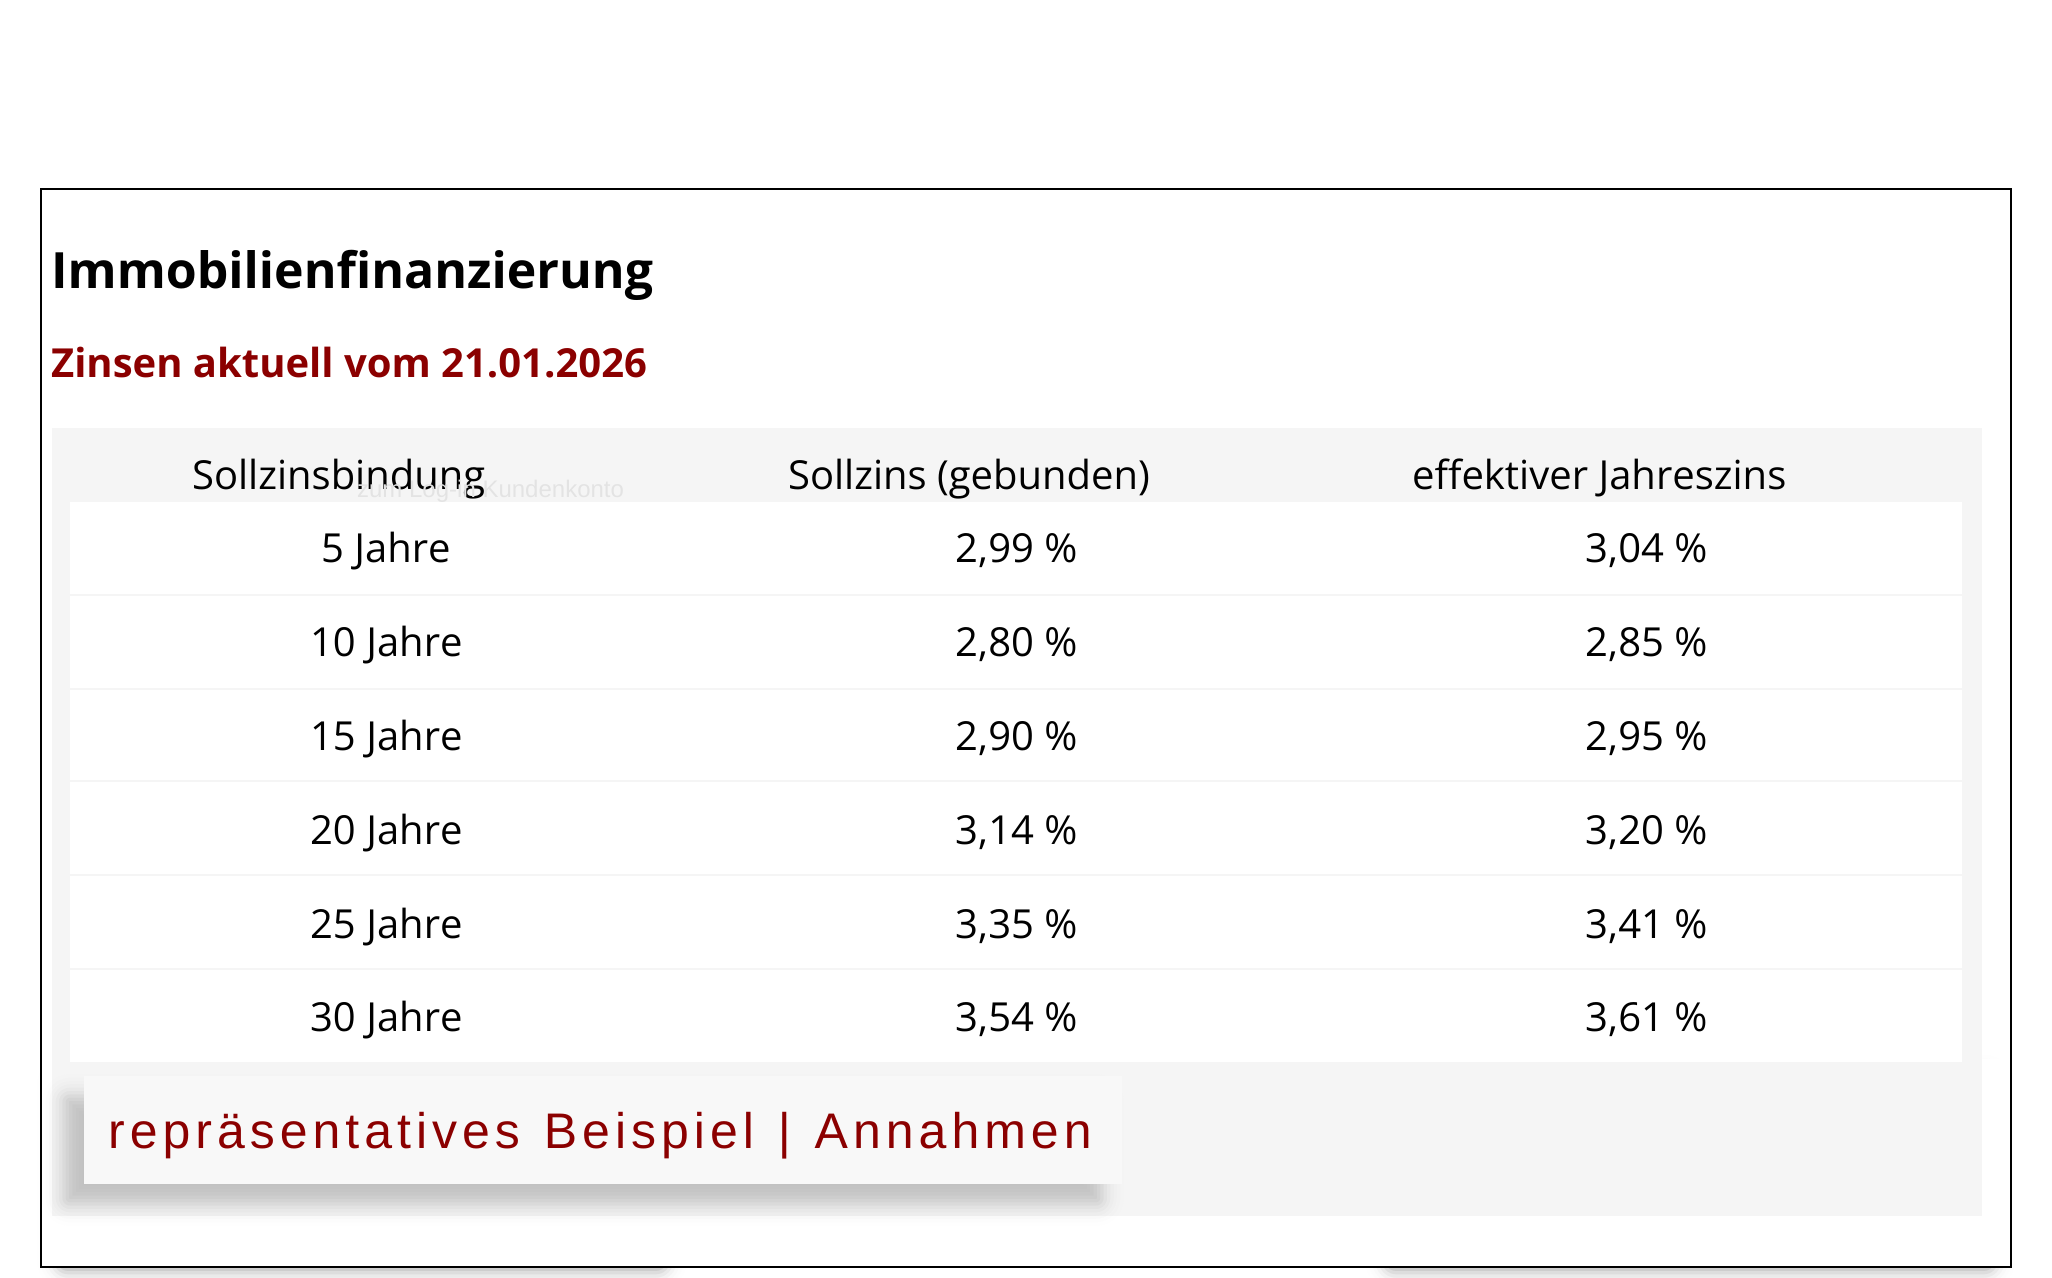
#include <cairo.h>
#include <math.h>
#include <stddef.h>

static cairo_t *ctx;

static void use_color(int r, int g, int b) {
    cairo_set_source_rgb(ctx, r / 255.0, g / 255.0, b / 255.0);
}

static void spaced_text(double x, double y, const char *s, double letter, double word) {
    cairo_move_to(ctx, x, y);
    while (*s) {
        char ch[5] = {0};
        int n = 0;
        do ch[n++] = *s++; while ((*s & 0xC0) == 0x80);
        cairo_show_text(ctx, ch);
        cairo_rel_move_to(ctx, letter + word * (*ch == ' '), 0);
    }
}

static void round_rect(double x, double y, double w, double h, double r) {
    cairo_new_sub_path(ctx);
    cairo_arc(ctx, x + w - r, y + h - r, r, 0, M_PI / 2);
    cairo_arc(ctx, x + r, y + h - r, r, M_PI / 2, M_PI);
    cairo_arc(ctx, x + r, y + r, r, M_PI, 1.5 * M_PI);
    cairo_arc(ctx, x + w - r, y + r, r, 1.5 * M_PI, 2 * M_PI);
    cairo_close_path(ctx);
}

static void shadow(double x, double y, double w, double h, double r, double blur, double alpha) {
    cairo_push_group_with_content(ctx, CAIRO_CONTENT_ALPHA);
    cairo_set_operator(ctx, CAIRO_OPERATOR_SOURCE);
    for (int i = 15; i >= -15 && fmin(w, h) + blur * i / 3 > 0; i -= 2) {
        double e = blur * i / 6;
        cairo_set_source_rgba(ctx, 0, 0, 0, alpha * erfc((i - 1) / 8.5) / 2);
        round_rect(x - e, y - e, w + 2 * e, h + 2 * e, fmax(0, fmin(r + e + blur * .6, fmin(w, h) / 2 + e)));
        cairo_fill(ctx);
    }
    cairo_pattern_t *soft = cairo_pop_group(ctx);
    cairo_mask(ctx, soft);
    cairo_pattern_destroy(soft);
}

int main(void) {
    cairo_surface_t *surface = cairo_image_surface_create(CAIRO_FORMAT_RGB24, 2052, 1278);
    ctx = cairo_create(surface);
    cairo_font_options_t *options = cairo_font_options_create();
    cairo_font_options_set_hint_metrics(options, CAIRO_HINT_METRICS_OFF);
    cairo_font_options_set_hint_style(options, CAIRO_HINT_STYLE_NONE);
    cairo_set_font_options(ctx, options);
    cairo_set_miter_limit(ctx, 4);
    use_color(255, 255, 255);
    cairo_paint(ctx);
    use_color(119, 119, 119);
    shadow(62, 1080, 600, 186, 0, 10, 1);
    shadow(1390, 1080, 600, 186, 0, 10, 1);
    use_color(255, 255, 255);
    cairo_rectangle(ctx, 42, 1059, 1968, 207);
    cairo_fill(ctx);
    cairo_rectangle(ctx, 41, 189, 1970, 1078);
    use_color(0, 0, 0);
    cairo_stroke(ctx);
    cairo_select_font_face(ctx, "Open Sans", CAIRO_FONT_SLANT_NORMAL, CAIRO_FONT_WEIGHT_BOLD);
    cairo_set_font_size(ctx, 50);
    cairo_move_to(ctx, 51, 288);
    cairo_show_text(ctx, "Immobilienfinanzierung");
    cairo_set_font_size(ctx, 40);
    use_color(139, 0, 0);
    cairo_move_to(ctx, 51, 377);
    cairo_show_text(ctx, "Zinsen aktuell vom 21.01.2026");
    use_color(245, 245, 245);
    cairo_rectangle(ctx, 52, 428, 1930, 788);
    cairo_fill(ctx);
    cairo_select_font_face(ctx, "Open Sans", CAIRO_FONT_SLANT_NORMAL, CAIRO_FONT_WEIGHT_NORMAL);
    use_color(0, 0, 0);
    cairo_move_to(ctx, 192, 489);
    cairo_show_text(ctx, "Sollzinsbindung");
    cairo_move_to(ctx, 788, 489);
    cairo_show_text(ctx, "Sollzins (gebunden)");
    cairo_move_to(ctx, 1412, 489);
    cairo_show_text(ctx, "effektiver Jahreszins");
    use_color(255, 255, 255);
    cairo_rectangle(ctx, 70, 502, 1892, 92);
    cairo_fill(ctx);
    use_color(0, 0, 0);
    cairo_move_to(ctx, 321, 562);
    cairo_show_text(ctx, "5 Jahre");
    cairo_move_to(ctx, 955, 562);
    cairo_show_text(ctx, "2,99 %");
    cairo_move_to(ctx, 1585, 562);
    cairo_show_text(ctx, "3,04 %");
    use_color(255, 255, 255);
    cairo_rectangle(ctx, 70, 596, 1892, 92);
    cairo_fill(ctx);
    use_color(0, 0, 0);
    cairo_move_to(ctx, 310, 656);
    cairo_show_text(ctx, "10 Jahre");
    cairo_move_to(ctx, 955, 656);
    cairo_show_text(ctx, "2,80 %");
    cairo_move_to(ctx, 1585, 656);
    cairo_show_text(ctx, "2,85 %");
    use_color(255, 255, 255);
    cairo_rectangle(ctx, 70, 690, 1892, 90);
    cairo_fill(ctx);
    use_color(0, 0, 0);
    cairo_move_to(ctx, 310, 750);
    cairo_show_text(ctx, "15 Jahre");
    cairo_move_to(ctx, 955, 750);
    cairo_show_text(ctx, "2,90 %");
    cairo_move_to(ctx, 1585, 750);
    cairo_show_text(ctx, "2,95 %");
    use_color(255, 255, 255);
    cairo_rectangle(ctx, 70, 782, 1892, 92);
    cairo_fill(ctx);
    use_color(0, 0, 0);
    cairo_move_to(ctx, 310, 844);
    cairo_show_text(ctx, "20 Jahre");
    cairo_move_to(ctx, 955, 844);
    cairo_show_text(ctx, "3,14 %");
    cairo_move_to(ctx, 1585, 844);
    cairo_show_text(ctx, "3,20 %");
    use_color(255, 255, 255);
    cairo_rectangle(ctx, 70, 876, 1892, 92);
    cairo_fill(ctx);
    use_color(0, 0, 0);
    cairo_move_to(ctx, 310, 938);
    cairo_show_text(ctx, "25 Jahre");
    cairo_move_to(ctx, 955, 938);
    cairo_show_text(ctx, "3,35 %");
    cairo_move_to(ctx, 1585, 938);
    cairo_show_text(ctx, "3,41 %");
    use_color(255, 255, 255);
    cairo_rectangle(ctx, 70, 970, 1892, 92);
    cairo_fill(ctx);
    use_color(0, 0, 0);
    cairo_move_to(ctx, 310, 1031);
    cairo_show_text(ctx, "30 Jahre");
    cairo_move_to(ctx, 955, 1031);
    cairo_show_text(ctx, "3,54 %");
    cairo_move_to(ctx, 1585, 1031);
    cairo_show_text(ctx, "3,61 %");
    use_color(192, 192, 192);
    shadow(64, 1096, 1038, 108, 0, 10, 1);
    use_color(248, 248, 248);
    cairo_rectangle(ctx, 84, 1076, 1038, 108);
    cairo_fill(ctx);
    cairo_select_font_face(ctx, "Liberation Sans", CAIRO_FONT_SLANT_NORMAL, CAIRO_FONT_WEIGHT_NORMAL);
    cairo_set_font_size(ctx, 50);
    use_color(139, 0, 0);
    spaced_text(108, 1148, "repräsentatives Beispiel | Annahmen", 5, 0);
    cairo_set_font_size(ctx, 24);
    use_color(227, 227, 227);
    cairo_move_to(ctx, 357, 497);
    cairo_show_text(ctx, "zum Log-in Kundenkonto");
    cairo_surface_write_to_png(surface, "result.png");
    cairo_font_options_destroy(options);
    cairo_destroy(ctx);
    cairo_surface_destroy(surface);
    return 0;
}
